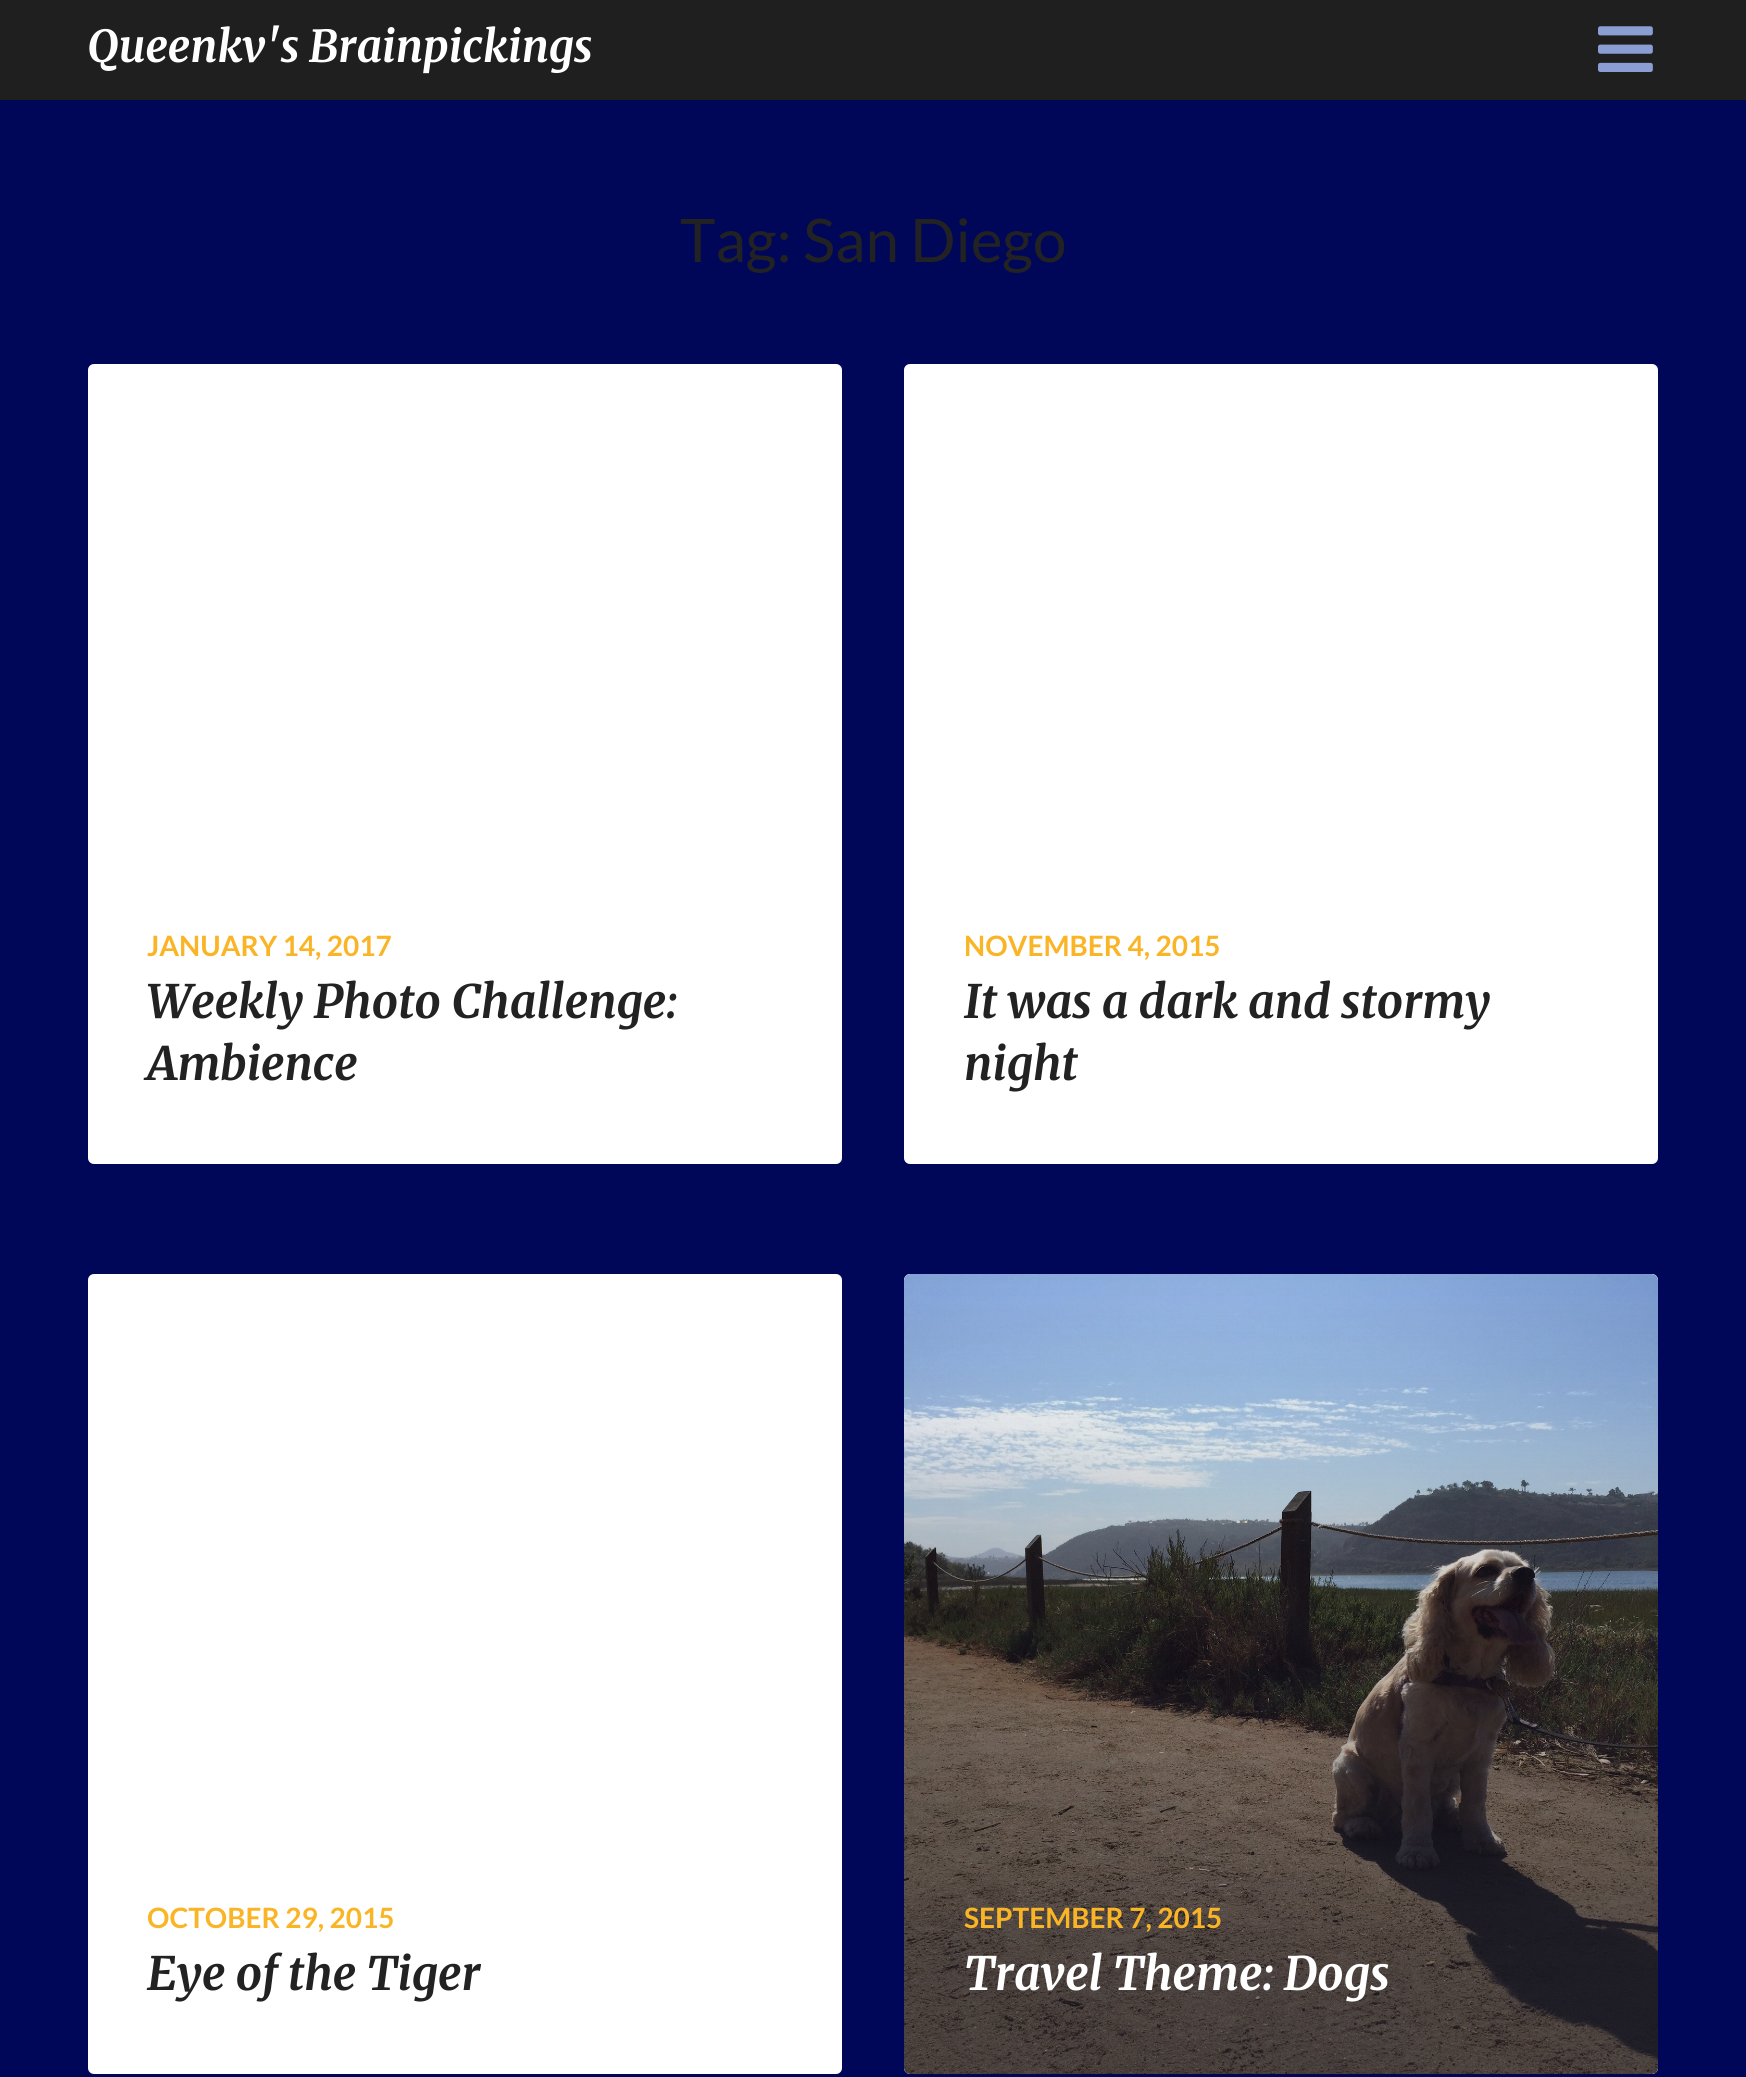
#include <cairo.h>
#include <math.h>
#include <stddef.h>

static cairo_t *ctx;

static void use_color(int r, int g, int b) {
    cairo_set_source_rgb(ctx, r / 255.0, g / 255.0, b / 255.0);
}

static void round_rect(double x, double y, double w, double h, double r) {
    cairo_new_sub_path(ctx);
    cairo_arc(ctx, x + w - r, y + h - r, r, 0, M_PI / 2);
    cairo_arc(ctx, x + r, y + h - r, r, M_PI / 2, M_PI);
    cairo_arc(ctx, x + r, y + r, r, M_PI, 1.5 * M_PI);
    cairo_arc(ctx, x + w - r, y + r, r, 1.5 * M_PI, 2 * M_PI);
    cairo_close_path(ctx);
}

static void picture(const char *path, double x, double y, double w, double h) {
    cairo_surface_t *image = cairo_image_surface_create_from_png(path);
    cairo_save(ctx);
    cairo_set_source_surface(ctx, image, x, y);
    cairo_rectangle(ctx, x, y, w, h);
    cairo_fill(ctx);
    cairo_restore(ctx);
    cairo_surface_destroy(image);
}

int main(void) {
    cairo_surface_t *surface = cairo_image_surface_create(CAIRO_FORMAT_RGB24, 1746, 2077);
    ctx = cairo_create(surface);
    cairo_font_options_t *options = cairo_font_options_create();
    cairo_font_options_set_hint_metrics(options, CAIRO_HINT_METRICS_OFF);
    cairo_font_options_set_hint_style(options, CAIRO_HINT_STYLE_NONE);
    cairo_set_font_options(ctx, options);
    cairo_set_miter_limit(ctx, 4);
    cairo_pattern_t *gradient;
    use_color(0, 7, 89);
    cairo_paint(ctx);
    use_color(31, 31, 31);
    cairo_rectangle(ctx, 0, 0, 1746, 100);
    cairo_fill(ctx);
    cairo_select_font_face(ctx, "Merriweather", CAIRO_FONT_SLANT_ITALIC, CAIRO_FONT_WEIGHT_BOLD);
    cairo_set_font_size(ctx, 44);
    use_color(255, 255, 255);
    cairo_move_to(ctx, 87, 62);
    cairo_show_text(ctx, "Queenkv's Brainpickings");
    picture("img1.png", 1598, 26, 55, 46);
    cairo_select_font_face(ctx, "Lato", CAIRO_FONT_SLANT_NORMAL, CAIRO_FONT_WEIGHT_NORMAL);
    cairo_set_font_size(ctx, 60);
    use_color(34, 34, 34);
    cairo_move_to(ctx, 680, 262);
    cairo_show_text(ctx, "Tag: San Diego");
    use_color(255, 255, 255);
    round_rect(88, 364, 754, 800, 6);
    cairo_fill(ctx);
    cairo_select_font_face(ctx, "Lato", CAIRO_FONT_SLANT_NORMAL, CAIRO_FONT_WEIGHT_BOLD);
    cairo_set_font_size(ctx, 28);
    use_color(250, 181, 38);
    cairo_move_to(ctx, 147, 956);
    cairo_show_text(ctx, "JANUARY 14, 2017");
    cairo_select_font_face(ctx, "Merriweather", CAIRO_FONT_SLANT_ITALIC, CAIRO_FONT_WEIGHT_BOLD);
    cairo_set_font_size(ctx, 46);
    use_color(34, 34, 34);
    cairo_move_to(ctx, 147, 1018);
    cairo_show_text(ctx, "Weekly Photo Challenge:");
    cairo_move_to(ctx, 147, 1080);
    cairo_show_text(ctx, "Ambience");
    use_color(255, 255, 255);
    round_rect(904, 364, 754, 800, 6);
    cairo_fill(ctx);
    cairo_select_font_face(ctx, "Lato", CAIRO_FONT_SLANT_NORMAL, CAIRO_FONT_WEIGHT_BOLD);
    cairo_set_font_size(ctx, 28);
    use_color(250, 181, 38);
    cairo_move_to(ctx, 964, 956);
    cairo_show_text(ctx, "NOVEMBER 4, 2015");
    cairo_select_font_face(ctx, "Merriweather", CAIRO_FONT_SLANT_ITALIC, CAIRO_FONT_WEIGHT_BOLD);
    cairo_set_font_size(ctx, 46);
    use_color(34, 34, 34);
    cairo_move_to(ctx, 964, 1018);
    cairo_show_text(ctx, "It was a dark and stormy");
    cairo_move_to(ctx, 964, 1080);
    cairo_show_text(ctx, "night");
    use_color(255, 255, 255);
    round_rect(88, 1274, 754, 800, 6);
    cairo_fill(ctx);
    cairo_select_font_face(ctx, "Lato", CAIRO_FONT_SLANT_NORMAL, CAIRO_FONT_WEIGHT_BOLD);
    cairo_set_font_size(ctx, 28);
    use_color(250, 181, 38);
    cairo_move_to(ctx, 147, 1928);
    cairo_show_text(ctx, "OCTOBER 29, 2015");
    cairo_select_font_face(ctx, "Merriweather", CAIRO_FONT_SLANT_ITALIC, CAIRO_FONT_WEIGHT_BOLD);
    cairo_set_font_size(ctx, 46);
    use_color(34, 34, 34);
    cairo_move_to(ctx, 147, 1990);
    cairo_show_text(ctx, "Eye of the Tiger");
    use_color(255, 255, 255);
    round_rect(904, 1274, 754, 800, 6);
    cairo_fill(ctx);
    picture("img2.png", 904, 1274, 754, 800);
    gradient = cairo_pattern_create_linear(1281, 1274, 1281, 2074);
    cairo_pattern_add_color_stop_rgba(gradient, 0, 0.125, 0.118, 0.173, 0);
    cairo_pattern_add_color_stop_rgba(gradient, 0.88, 0.125, 0.118, 0.173, 0.51);
    cairo_pattern_add_color_stop_rgba(gradient, 0.89, 0.125, 0.118, 0.173, 0.52);
    cairo_set_source(ctx, gradient);
    cairo_pattern_destroy(gradient);
    round_rect(904, 1274, 754, 800, 6);
    cairo_fill(ctx);
    cairo_select_font_face(ctx, "Lato", CAIRO_FONT_SLANT_NORMAL, CAIRO_FONT_WEIGHT_BOLD);
    cairo_set_font_size(ctx, 28);
    use_color(250, 181, 38);
    cairo_move_to(ctx, 964, 1928);
    cairo_show_text(ctx, "SEPTEMBER 7, 2015");
    cairo_select_font_face(ctx, "Merriweather", CAIRO_FONT_SLANT_ITALIC, CAIRO_FONT_WEIGHT_BOLD);
    cairo_set_font_size(ctx, 46);
    use_color(255, 255, 255);
    cairo_move_to(ctx, 964, 1990);
    cairo_show_text(ctx, "Travel Theme: Dogs");
    cairo_surface_write_to_png(surface, "result.png");
    cairo_font_options_destroy(options);
    cairo_destroy(ctx);
    cairo_surface_destroy(surface);
    return 0;
}
